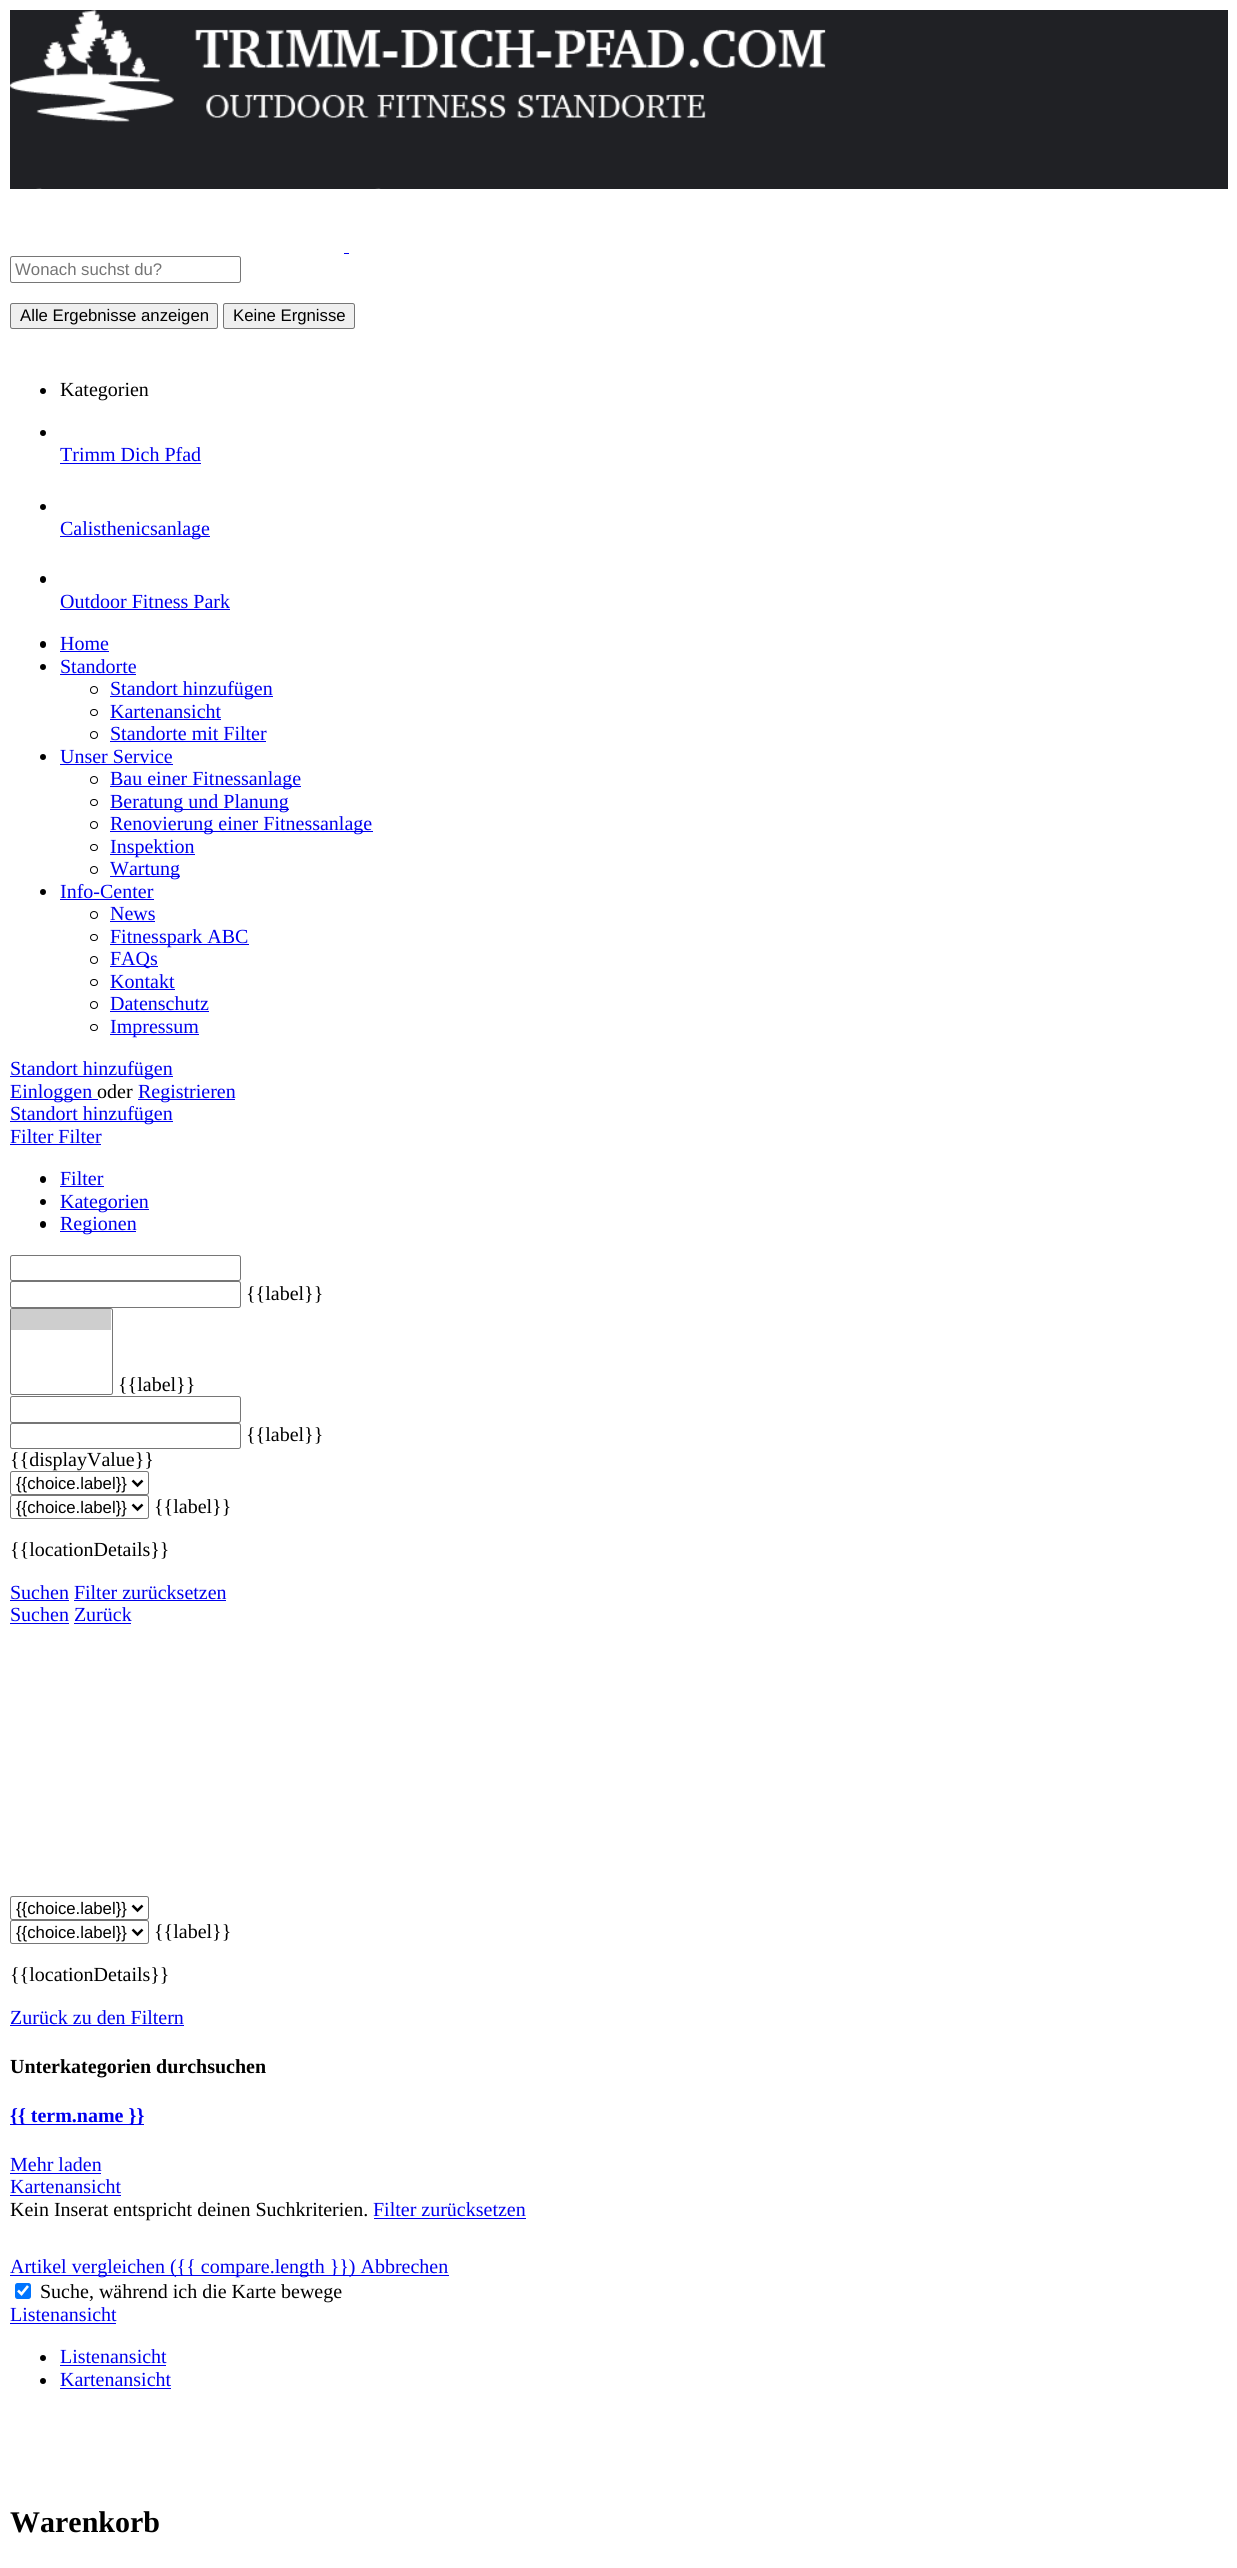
#include <cairo.h>
#include <math.h>
#include <stddef.h>

static cairo_t *ctx;

static void use_color(int r, int g, int b) {
    cairo_set_source_rgb(ctx, r / 255.0, g / 255.0, b / 255.0);
}

static void round_rect(double x, double y, double w, double h, double r) {
    cairo_new_sub_path(ctx);
    cairo_arc(ctx, x + w - r, y + h - r, r, 0, M_PI / 2);
    cairo_arc(ctx, x + r, y + h - r, r, M_PI / 2, M_PI);
    cairo_arc(ctx, x + r, y + r, r, M_PI, 1.5 * M_PI);
    cairo_arc(ctx, x + w - r, y + r, r, 1.5 * M_PI, 2 * M_PI);
    cairo_close_path(ctx);
}

static void picture(const char *path, double x, double y, double w, double h) {
    cairo_surface_t *image = cairo_image_surface_create_from_png(path);
    cairo_save(ctx);
    cairo_set_source_surface(ctx, image, x, y);
    cairo_rectangle(ctx, x, y, w, h);
    cairo_fill(ctx);
    cairo_restore(ctx);
    cairo_surface_destroy(image);
}

int main(void) {
    cairo_surface_t *surface = cairo_image_surface_create(CAIRO_FORMAT_RGB24, 1237, 2568);
    ctx = cairo_create(surface);
    cairo_font_options_t *options = cairo_font_options_create();
    cairo_font_options_set_hint_metrics(options, CAIRO_HINT_METRICS_OFF);
    cairo_font_options_set_hint_style(options, CAIRO_HINT_STYLE_NONE);
    cairo_set_font_options(ctx, options);
    cairo_set_miter_limit(ctx, 4);
    use_color(255, 255, 255);
    cairo_paint(ctx);
    use_color(32, 33, 37);
    cairo_rectangle(ctx, 10, 10, 1218, 179);
    cairo_fill(ctx);
    picture("img1.png", 10, 10, 816, 112);
    picture("img2.png", 36, 188, 6, 1);
    picture("img3.png", 375, 188, 6, 1);
    use_color(0, 0, 238);
    cairo_rectangle(ctx, 344, 253, 5, 1);
    cairo_fill(ctx);
    round_rect(10.5, 256.5, 230, 26, 2);
    use_color(118, 118, 118);
    cairo_set_line_width(ctx, 1);
    cairo_stroke(ctx);
    cairo_select_font_face(ctx, "Liberation Sans", CAIRO_FONT_SLANT_NORMAL, CAIRO_FONT_WEIGHT_NORMAL);
    cairo_set_font_size(ctx, 16.75);
    use_color(117, 117, 117);
    cairo_move_to(ctx, 15, 275);
    cairo_show_text(ctx, "Wonach suchst du?");
    use_color(239, 239, 239);
    round_rect(10.5, 303.5, 207, 25, 2);
    cairo_fill_preserve(ctx);
    use_color(118, 118, 118);
    cairo_stroke(ctx);
    use_color(0, 0, 0);
    cairo_move_to(ctx, 20, 321);
    cairo_show_text(ctx, "Alle Ergebnisse anzeigen");
    use_color(239, 239, 239);
    round_rect(223.5, 303.5, 131, 25, 2);
    cairo_fill_preserve(ctx);
    use_color(118, 118, 118);
    cairo_stroke(ctx);
    use_color(0, 0, 0);
    cairo_move_to(ctx, 233, 321);
    cairo_show_text(ctx, "Keine Ergnisse");
    cairo_new_path(ctx);
    cairo_arc(ctx, 43, 391, 3, 0, 2 * M_PI);
    cairo_fill(ctx);
    cairo_select_font_face(ctx, "Liberation Serif", CAIRO_FONT_SLANT_NORMAL, CAIRO_FONT_WEIGHT_NORMAL);
    cairo_set_font_size(ctx, 20);
    cairo_move_to(ctx, 60, 396);
    cairo_show_text(ctx, "Kategorien");
    cairo_new_path(ctx);
    cairo_arc(ctx, 43, 433, 3, 0, 2 * M_PI);
    cairo_fill(ctx);
    use_color(0, 0, 238);
    cairo_move_to(ctx, 60, 461);
    cairo_show_text(ctx, "Trimm Dich Pfad");
    cairo_rectangle(ctx, 60, 463, 141, 1);
    cairo_fill(ctx);
    use_color(0, 0, 0);
    cairo_arc(ctx, 43, 507, 3, 0, 2 * M_PI);
    cairo_fill(ctx);
    use_color(0, 0, 238);
    cairo_rectangle(ctx, 60, 536, 150, 1);
    cairo_fill(ctx);
    cairo_move_to(ctx, 60, 535);
    cairo_show_text(ctx, "Calisthenicsanlage");
    use_color(0, 0, 0);
    round_rect(40, 576, 6, 7, 3);
    cairo_fill(ctx);
    use_color(0, 0, 238);
    cairo_move_to(ctx, 60, 608);
    cairo_show_text(ctx, "Outdoor Fitness Park");
    cairo_rectangle(ctx, 60, 609, 170, 1);
    cairo_fill(ctx);
    use_color(0, 0, 0);
    round_rect(40, 641, 6, 7, 3);
    cairo_fill(ctx);
    use_color(0, 0, 238);
    cairo_move_to(ctx, 60, 650);
    cairo_show_text(ctx, "Home");
    cairo_rectangle(ctx, 60, 651, 49, 1);
    cairo_fill(ctx);
    use_color(0, 0, 0);
    cairo_arc(ctx, 43, 667, 3, 0, 2 * M_PI);
    cairo_fill(ctx);
    use_color(0, 0, 238);
    cairo_move_to(ctx, 60, 673);
    cairo_show_text(ctx, "Standorte");
    cairo_rectangle(ctx, 60, 674, 76, 1);
    cairo_fill(ctx);
    cairo_arc(ctx, 94, 690, 3.5, 0, 2 * M_PI);
    use_color(0, 0, 0);
    cairo_stroke(ctx);
    use_color(0, 0, 238);
    cairo_rectangle(ctx, 110, 696, 163, 1);
    cairo_fill(ctx);
    cairo_move_to(ctx, 110, 695);
    cairo_show_text(ctx, "Standort hinzufügen");
    round_rect(90.5, 709.5, 7, 6, 3);
    use_color(0, 0, 0);
    cairo_stroke(ctx);
    use_color(0, 0, 238);
    cairo_move_to(ctx, 110, 718);
    cairo_show_text(ctx, "Kartenansicht");
    cairo_rectangle(ctx, 110, 719, 111, 1);
    cairo_fill(ctx);
    cairo_arc(ctx, 94, 735, 3.5, 0, 2 * M_PI);
    use_color(0, 0, 0);
    cairo_stroke(ctx);
    use_color(0, 0, 238);
    cairo_move_to(ctx, 110, 740);
    cairo_show_text(ctx, "Standorte mit Filter");
    cairo_rectangle(ctx, 110, 741, 156, 1);
    cairo_fill(ctx);
    use_color(0, 0, 0);
    cairo_arc(ctx, 43, 757, 3, 0, 2 * M_PI);
    cairo_fill(ctx);
    use_color(0, 0, 238);
    cairo_move_to(ctx, 60, 763);
    cairo_show_text(ctx, "Unser Service");
    cairo_rectangle(ctx, 60, 764, 113, 1);
    cairo_fill(ctx);
    cairo_arc(ctx, 94, 780, 3.5, 0, 2 * M_PI);
    use_color(0, 0, 0);
    cairo_stroke(ctx);
    use_color(0, 0, 238);
    cairo_rectangle(ctx, 110, 786, 191, 1);
    cairo_fill(ctx);
    cairo_move_to(ctx, 110, 785);
    cairo_show_text(ctx, "Bau einer Fitnessanlage");
    round_rect(90.5, 799.5, 7, 6, 3);
    use_color(0, 0, 0);
    cairo_stroke(ctx);
    use_color(0, 0, 238);
    cairo_rectangle(ctx, 110, 809, 179, 1);
    cairo_fill(ctx);
    cairo_move_to(ctx, 110, 808);
    cairo_show_text(ctx, "Beratung und Planung");
    cairo_new_path(ctx);
    cairo_arc(ctx, 94, 825, 3.5, 0, 2 * M_PI);
    use_color(0, 0, 0);
    cairo_stroke(ctx);
    use_color(0, 0, 238);
    cairo_rectangle(ctx, 110, 831, 263, 1);
    cairo_fill(ctx);
    cairo_move_to(ctx, 110, 830);
    cairo_show_text(ctx, "Renovierung einer Fitnessanlage");
    round_rect(90.5, 844.5, 7, 6, 3);
    use_color(0, 0, 0);
    cairo_stroke(ctx);
    use_color(0, 0, 238);
    cairo_rectangle(ctx, 110, 854, 85, 1);
    cairo_fill(ctx);
    cairo_move_to(ctx, 110, 853);
    cairo_show_text(ctx, "Inspektion");
    cairo_new_path(ctx);
    cairo_arc(ctx, 94, 870, 3.5, 0, 2 * M_PI);
    use_color(0, 0, 0);
    cairo_stroke(ctx);
    use_color(0, 0, 238);
    cairo_rectangle(ctx, 110, 876, 70, 1);
    cairo_fill(ctx);
    cairo_move_to(ctx, 110, 875);
    cairo_show_text(ctx, "Wartung");
    use_color(0, 0, 0);
    cairo_new_path(ctx);
    cairo_arc(ctx, 43, 892, 3, 0, 2 * M_PI);
    cairo_fill(ctx);
    use_color(0, 0, 238);
    cairo_move_to(ctx, 60, 898);
    cairo_show_text(ctx, "Info-Center");
    cairo_rectangle(ctx, 60, 899, 94, 1);
    cairo_fill(ctx);
    cairo_arc(ctx, 94, 915, 3.5, 0, 2 * M_PI);
    use_color(0, 0, 0);
    cairo_stroke(ctx);
    use_color(0, 0, 238);
    cairo_move_to(ctx, 110, 920);
    cairo_show_text(ctx, "News");
    cairo_rectangle(ctx, 110, 921, 45, 1);
    cairo_fill(ctx);
    round_rect(90.5, 934.5, 7, 6, 3);
    use_color(0, 0, 0);
    cairo_stroke(ctx);
    use_color(0, 0, 238);
    cairo_rectangle(ctx, 110, 944, 139, 1);
    cairo_fill(ctx);
    cairo_move_to(ctx, 110, 943);
    cairo_show_text(ctx, "Fitnesspark ABC");
    cairo_new_path(ctx);
    cairo_arc(ctx, 94, 960, 3.5, 0, 2 * M_PI);
    use_color(0, 0, 0);
    cairo_stroke(ctx);
    use_color(0, 0, 238);
    cairo_rectangle(ctx, 110, 966, 48, 1);
    cairo_fill(ctx);
    cairo_move_to(ctx, 110, 965);
    cairo_show_text(ctx, "FAQs");
    round_rect(90.5, 979.5, 7, 6, 3);
    use_color(0, 0, 0);
    cairo_stroke(ctx);
    use_color(0, 0, 238);
    cairo_move_to(ctx, 110, 988);
    cairo_show_text(ctx, "Kontakt");
    cairo_rectangle(ctx, 110, 989, 65, 1);
    cairo_fill(ctx);
    cairo_arc(ctx, 94, 1005, 3.5, 0, 2 * M_PI);
    use_color(0, 0, 0);
    cairo_stroke(ctx);
    use_color(0, 0, 238);
    cairo_move_to(ctx, 110, 1010);
    cairo_show_text(ctx, "Datenschutz");
    cairo_rectangle(ctx, 110, 1011, 99, 1);
    cairo_fill(ctx);
    round_rect(90.5, 1024.5, 7, 6, 3);
    use_color(0, 0, 0);
    cairo_stroke(ctx);
    use_color(0, 0, 238);
    cairo_rectangle(ctx, 110, 1034, 89, 1);
    cairo_fill(ctx);
    cairo_move_to(ctx, 110, 1033);
    cairo_show_text(ctx, "Impressum");
    cairo_rectangle(ctx, 10, 1076, 163, 1);
    cairo_fill(ctx);
    cairo_move_to(ctx, 10, 1075);
    cairo_show_text(ctx, "Standort hinzufügen");
    cairo_rectangle(ctx, 10, 1099, 88, 1);
    cairo_fill(ctx);
    cairo_move_to(ctx, 10, 1098);
    cairo_show_text(ctx, "Einloggen");
    use_color(0, 0, 0);
    cairo_move_to(ctx, 97, 1098);
    cairo_show_text(ctx, "oder");
    use_color(0, 0, 238);
    cairo_rectangle(ctx, 138, 1099, 97, 1);
    cairo_fill(ctx);
    cairo_move_to(ctx, 138, 1098);
    cairo_show_text(ctx, "Registrieren");
    cairo_rectangle(ctx, 10, 1121, 163, 1);
    cairo_fill(ctx);
    cairo_move_to(ctx, 10, 1120);
    cairo_show_text(ctx, "Standort hinzufügen");
    cairo_move_to(ctx, 10, 1143);
    cairo_show_text(ctx, "Filter Filter");
    cairo_rectangle(ctx, 10, 1144, 91, 1);
    cairo_fill(ctx);
    use_color(0, 0, 0);
    round_rect(40, 1176, 6, 7, 3);
    cairo_fill(ctx);
    use_color(0, 0, 238);
    cairo_move_to(ctx, 60, 1185);
    cairo_show_text(ctx, "Filter");
    cairo_rectangle(ctx, 60, 1186, 44, 1);
    cairo_fill(ctx);
    use_color(0, 0, 0);
    cairo_arc(ctx, 43, 1202, 3, 0, 2 * M_PI);
    cairo_fill(ctx);
    use_color(0, 0, 238);
    cairo_rectangle(ctx, 60, 1209, 89, 1);
    cairo_fill(ctx);
    cairo_move_to(ctx, 60, 1208);
    cairo_show_text(ctx, "Kategorien");
    use_color(0, 0, 0);
    round_rect(40, 1221, 6, 7, 3);
    cairo_fill(ctx);
    use_color(0, 0, 238);
    cairo_rectangle(ctx, 60, 1231, 76, 1);
    cairo_fill(ctx);
    cairo_move_to(ctx, 60, 1230);
    cairo_show_text(ctx, "Regionen");
    round_rect(10.5, 1255.5, 230, 25, 2);
    use_color(118, 118, 118);
    cairo_stroke(ctx);
    round_rect(10.5, 1281.5, 230, 26, 2);
    cairo_stroke(ctx);
    use_color(0, 0, 0);
    cairo_move_to(ctx, 246, 1300);
    cairo_show_text(ctx, "{{label}}");
    round_rect(10.5, 1308.5, 102, 86, 2);
    use_color(118, 118, 118);
    cairo_stroke(ctx);
    use_color(206, 206, 206);
    cairo_new_path(ctx);
    cairo_move_to(ctx, 12, 1309);
    cairo_line_to(ctx, 110, 1309);
    cairo_curve_to(ctx, 110.5, 1309, 111, 1309.5, 111, 1310);
    cairo_line_to(ctx, 111, 1330);
    cairo_line_to(ctx, 11, 1330);
    cairo_line_to(ctx, 11, 1310);
    cairo_curve_to(ctx, 11, 1309.5, 11.5, 1309, 12, 1309);
    cairo_close_path(ctx);
    cairo_fill(ctx);
    use_color(0, 0, 0);
    cairo_move_to(ctx, 118, 1391);
    cairo_show_text(ctx, "{{label}}");
    round_rect(10.5, 1396.5, 230, 26, 2);
    use_color(118, 118, 118);
    cairo_stroke(ctx);
    round_rect(10.5, 1423.5, 230, 25, 2);
    cairo_stroke(ctx);
    use_color(0, 0, 0);
    cairo_move_to(ctx, 246, 1441);
    cairo_show_text(ctx, "{{label}}");
    cairo_move_to(ctx, 10, 1466);
    cairo_show_text(ctx, "{{displayValue}}");
    round_rect(10.5, 1471.5, 138, 23, 2);
    use_color(118, 118, 118);
    cairo_stroke(ctx);
    cairo_new_path(ctx);
    cairo_move_to(ctx, 132.5, 1480.5);
    cairo_line_to(ctx, 137.5, 1485.5);
    cairo_line_to(ctx, 142.5, 1480.5);
    use_color(0, 0, 0);
    cairo_set_line_width(ctx, 2.5);
    cairo_stroke(ctx);
    cairo_select_font_face(ctx, "Liberation Sans", CAIRO_FONT_SLANT_NORMAL, CAIRO_FONT_WEIGHT_NORMAL);
    cairo_set_font_size(ctx, 16.75);
    cairo_move_to(ctx, 16, 1489);
    cairo_show_text(ctx, "{{choice.label}}");
    round_rect(10.5, 1495.5, 138, 23, 2);
    use_color(118, 118, 118);
    cairo_set_line_width(ctx, 1);
    cairo_stroke(ctx);
    cairo_new_path(ctx);
    cairo_move_to(ctx, 132.5, 1504.5);
    cairo_line_to(ctx, 137.5, 1509.5);
    cairo_line_to(ctx, 142.5, 1504.5);
    use_color(0, 0, 0);
    cairo_set_line_width(ctx, 2.5);
    cairo_stroke(ctx);
    cairo_move_to(ctx, 16, 1513);
    cairo_show_text(ctx, "{{choice.label}}");
    cairo_select_font_face(ctx, "Liberation Serif", CAIRO_FONT_SLANT_NORMAL, CAIRO_FONT_WEIGHT_NORMAL);
    cairo_set_font_size(ctx, 20);
    cairo_move_to(ctx, 154, 1513);
    cairo_show_text(ctx, "{{label}}");
    cairo_move_to(ctx, 10, 1556);
    cairo_show_text(ctx, "{{locationDetails}}");
    use_color(0, 0, 238);
    cairo_move_to(ctx, 10, 1599);
    cairo_show_text(ctx, "Suchen Filter zurücksetzen");
    cairo_rectangle(ctx, 10, 1600, 59, 1);
    cairo_fill(ctx);
    cairo_rectangle(ctx, 74, 1600, 152, 1);
    cairo_fill(ctx);
    cairo_move_to(ctx, 10, 1621);
    cairo_show_text(ctx, "Suchen Zurück");
    cairo_rectangle(ctx, 10, 1623, 59, 1);
    cairo_fill(ctx);
    cairo_rectangle(ctx, 74, 1623, 57, 1);
    cairo_fill(ctx);
    round_rect(10.5, 1896.5, 138, 23, 2);
    use_color(118, 118, 118);
    cairo_set_line_width(ctx, 1);
    cairo_stroke(ctx);
    cairo_new_path(ctx);
    cairo_move_to(ctx, 132.5, 1905.5);
    cairo_line_to(ctx, 137.5, 1910.5);
    cairo_line_to(ctx, 142.5, 1905.5);
    use_color(0, 0, 0);
    cairo_set_line_width(ctx, 2.5);
    cairo_stroke(ctx);
    cairo_select_font_face(ctx, "Liberation Sans", CAIRO_FONT_SLANT_NORMAL, CAIRO_FONT_WEIGHT_NORMAL);
    cairo_set_font_size(ctx, 16.75);
    cairo_move_to(ctx, 16, 1914);
    cairo_show_text(ctx, "{{choice.label}}");
    round_rect(10.5, 1920.5, 138, 23, 2);
    use_color(118, 118, 118);
    cairo_set_line_width(ctx, 1);
    cairo_stroke(ctx);
    cairo_new_path(ctx);
    cairo_move_to(ctx, 132.5, 1929.5);
    cairo_line_to(ctx, 137.5, 1934.5);
    cairo_line_to(ctx, 142.5, 1929.5);
    use_color(0, 0, 0);
    cairo_set_line_width(ctx, 2.5);
    cairo_stroke(ctx);
    cairo_move_to(ctx, 16, 1938);
    cairo_show_text(ctx, "{{choice.label}}");
    cairo_select_font_face(ctx, "Liberation Serif", CAIRO_FONT_SLANT_NORMAL, CAIRO_FONT_WEIGHT_NORMAL);
    cairo_set_font_size(ctx, 20);
    cairo_move_to(ctx, 154, 1938);
    cairo_show_text(ctx, "{{label}}");
    cairo_move_to(ctx, 10, 1981);
    cairo_show_text(ctx, "{{locationDetails}}");
    use_color(0, 0, 238);
    cairo_move_to(ctx, 10, 2024);
    cairo_show_text(ctx, "Zurück zu den Filtern");
    cairo_rectangle(ctx, 10, 2025, 174, 1);
    cairo_fill(ctx);
    cairo_select_font_face(ctx, "Liberation Serif", CAIRO_FONT_SLANT_NORMAL, CAIRO_FONT_WEIGHT_BOLD);
    use_color(0, 0, 0);
    cairo_move_to(ctx, 10, 2073);
    cairo_show_text(ctx, "Unterkategorien durchsuchen");
    use_color(0, 0, 238);
    cairo_rectangle(ctx, 10, 2124, 134, 1);
    cairo_fill(ctx);
    cairo_move_to(ctx, 10, 2122);
    cairo_show_text(ctx, "{{ term.name }}");
    cairo_select_font_face(ctx, "Liberation Serif", CAIRO_FONT_SLANT_NORMAL, CAIRO_FONT_WEIGHT_NORMAL);
    cairo_move_to(ctx, 10, 2171);
    cairo_show_text(ctx, "Mehr laden");
    cairo_rectangle(ctx, 10, 2173, 91, 1);
    cairo_fill(ctx);
    cairo_move_to(ctx, 10, 2193);
    cairo_show_text(ctx, "Kartenansicht");
    cairo_rectangle(ctx, 10, 2195, 111, 1);
    cairo_fill(ctx);
    use_color(0, 0, 0);
    cairo_move_to(ctx, 10, 2216);
    cairo_show_text(ctx, "Kein Inserat entspricht deinen Suchkriterien.");
    use_color(0, 0, 238);
    cairo_move_to(ctx, 373, 2216);
    cairo_show_text(ctx, "Filter zurücksetzen");
    cairo_rectangle(ctx, 374, 2218, 152, 1);
    cairo_fill(ctx);
    cairo_rectangle(ctx, 10, 2275, 439, 1);
    cairo_fill(ctx);
    cairo_move_to(ctx, 10, 2273);
    cairo_show_text(ctx, "Artikel vergleichen ({{ compare.length }}) Abbrechen");
    use_color(0, 117, 255);
    round_rect(15, 2283, 16, 16, 2.5);
    cairo_fill(ctx);
    cairo_new_path(ctx);
    cairo_move_to(ctx, 18, 2290.5);
    cairo_line_to(ctx, 21.5, 2294);
    cairo_line_to(ctx, 28, 2286);
    use_color(255, 255, 255);
    cairo_set_line_width(ctx, 2.6);
    cairo_stroke(ctx);
    use_color(0, 0, 0);
    cairo_move_to(ctx, 40, 2298);
    cairo_show_text(ctx, "Suche, während ich die Karte bewege");
    use_color(0, 0, 238);
    cairo_move_to(ctx, 10, 2321);
    cairo_show_text(ctx, "Listenansicht");
    cairo_rectangle(ctx, 10, 2323, 106, 1);
    cairo_fill(ctx);
    use_color(0, 0, 0);
    cairo_arc(ctx, 43, 2358, 3, 0, 2 * M_PI);
    cairo_fill(ctx);
    use_color(0, 0, 238);
    cairo_move_to(ctx, 60, 2363);
    cairo_show_text(ctx, "Listenansicht");
    cairo_rectangle(ctx, 60, 2365, 106, 1);
    cairo_fill(ctx);
    use_color(0, 0, 0);
    cairo_arc(ctx, 43, 2381, 3, 0, 2 * M_PI);
    cairo_fill(ctx);
    use_color(0, 0, 238);
    cairo_move_to(ctx, 60, 2386);
    cairo_show_text(ctx, "Kartenansicht");
    cairo_rectangle(ctx, 60, 2388, 111, 1);
    cairo_fill(ctx);
    cairo_select_font_face(ctx, "Liberation Serif", CAIRO_FONT_SLANT_NORMAL, CAIRO_FONT_WEIGHT_BOLD);
    cairo_set_font_size(ctx, 30);
    use_color(0, 0, 0);
    cairo_move_to(ctx, 10, 2532);
    cairo_show_text(ctx, "Warenkorb");
    cairo_surface_write_to_png(surface, "result.png");
    cairo_font_options_destroy(options);
    cairo_destroy(ctx);
    cairo_surface_destroy(surface);
    return 0;
}
